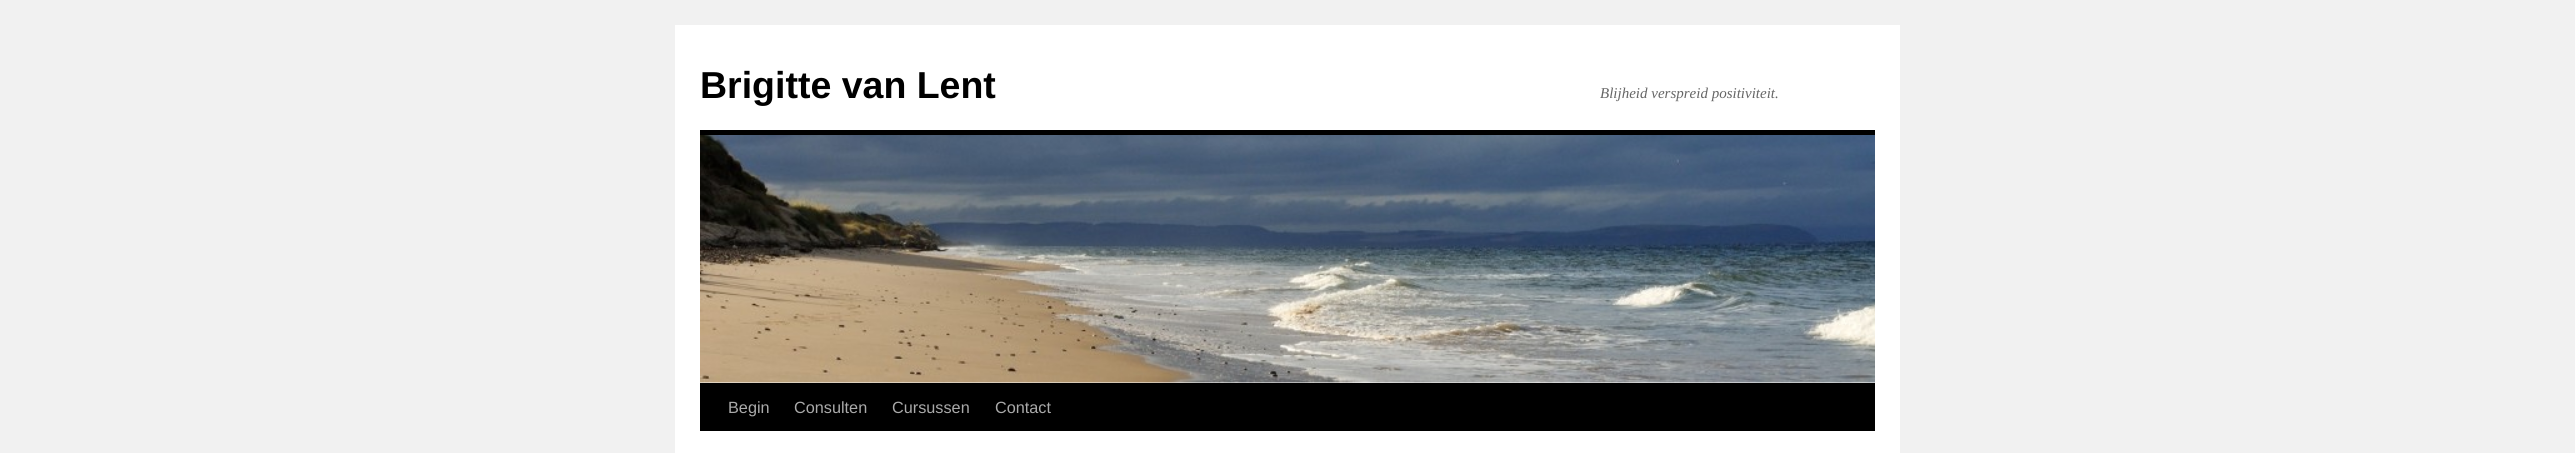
#include <cairo.h>
#include <math.h>
#include <stddef.h>

static cairo_t *ctx;

static void use_color(int r, int g, int b) {
    cairo_set_source_rgb(ctx, r / 255.0, g / 255.0, b / 255.0);
}

static void picture(const char *path, double x, double y, double w, double h) {
    cairo_surface_t *image = cairo_image_surface_create_from_png(path);
    cairo_save(ctx);
    cairo_set_source_surface(ctx, image, x, y);
    cairo_rectangle(ctx, x, y, w, h);
    cairo_fill(ctx);
    cairo_restore(ctx);
    cairo_surface_destroy(image);
}

int main(void) {
    cairo_surface_t *surface = cairo_image_surface_create(CAIRO_FORMAT_RGB24, 2575, 453);
    ctx = cairo_create(surface);
    cairo_font_options_t *options = cairo_font_options_create();
    cairo_font_options_set_hint_metrics(options, CAIRO_HINT_METRICS_OFF);
    cairo_font_options_set_hint_style(options, CAIRO_HINT_STYLE_NONE);
    cairo_set_font_options(ctx, options);
    cairo_set_miter_limit(ctx, 4);
    use_color(241, 241, 241);
    cairo_paint(ctx);
    use_color(255, 255, 255);
    cairo_rectangle(ctx, 675, 25, 1225, 428);
    cairo_fill(ctx);
    cairo_select_font_face(ctx, "Liberation Sans", CAIRO_FONT_SLANT_NORMAL, CAIRO_FONT_WEIGHT_BOLD);
    cairo_set_font_size(ctx, 37.5);
    use_color(0, 0, 0);
    cairo_move_to(ctx, 700, 98);
    cairo_show_text(ctx, "Brigitte van Lent");
    cairo_select_font_face(ctx, "Liberation Serif", CAIRO_FONT_SLANT_ITALIC, CAIRO_FONT_WEIGHT_NORMAL);
    cairo_set_font_size(ctx, 15);
    use_color(102, 102, 102);
    cairo_move_to(ctx, 1600, 98);
    cairo_show_text(ctx, "Blijheid verspreid positiviteit.");
    use_color(0, 0, 0);
    cairo_rectangle(ctx, 700, 130, 1175, 5);
    cairo_fill(ctx);
    cairo_rectangle(ctx, 700, 383, 1175, 48);
    cairo_fill(ctx);
    picture("img1.png", 700, 135, 1175, 248);
    cairo_select_font_face(ctx, "Liberation Sans", CAIRO_FONT_SLANT_NORMAL, CAIRO_FONT_WEIGHT_NORMAL);
    cairo_set_font_size(ctx, 16.25);
    use_color(170, 170, 170);
    cairo_move_to(ctx, 728, 413);
    cairo_show_text(ctx, "Begin");
    cairo_move_to(ctx, 794, 413);
    cairo_show_text(ctx, "Consulten");
    cairo_move_to(ctx, 892, 413);
    cairo_show_text(ctx, "Cursussen");
    cairo_move_to(ctx, 995, 413);
    cairo_show_text(ctx, "Contact");
    cairo_surface_write_to_png(surface, "result.png");
    cairo_font_options_destroy(options);
    cairo_destroy(ctx);
    cairo_surface_destroy(surface);
    return 0;
}
